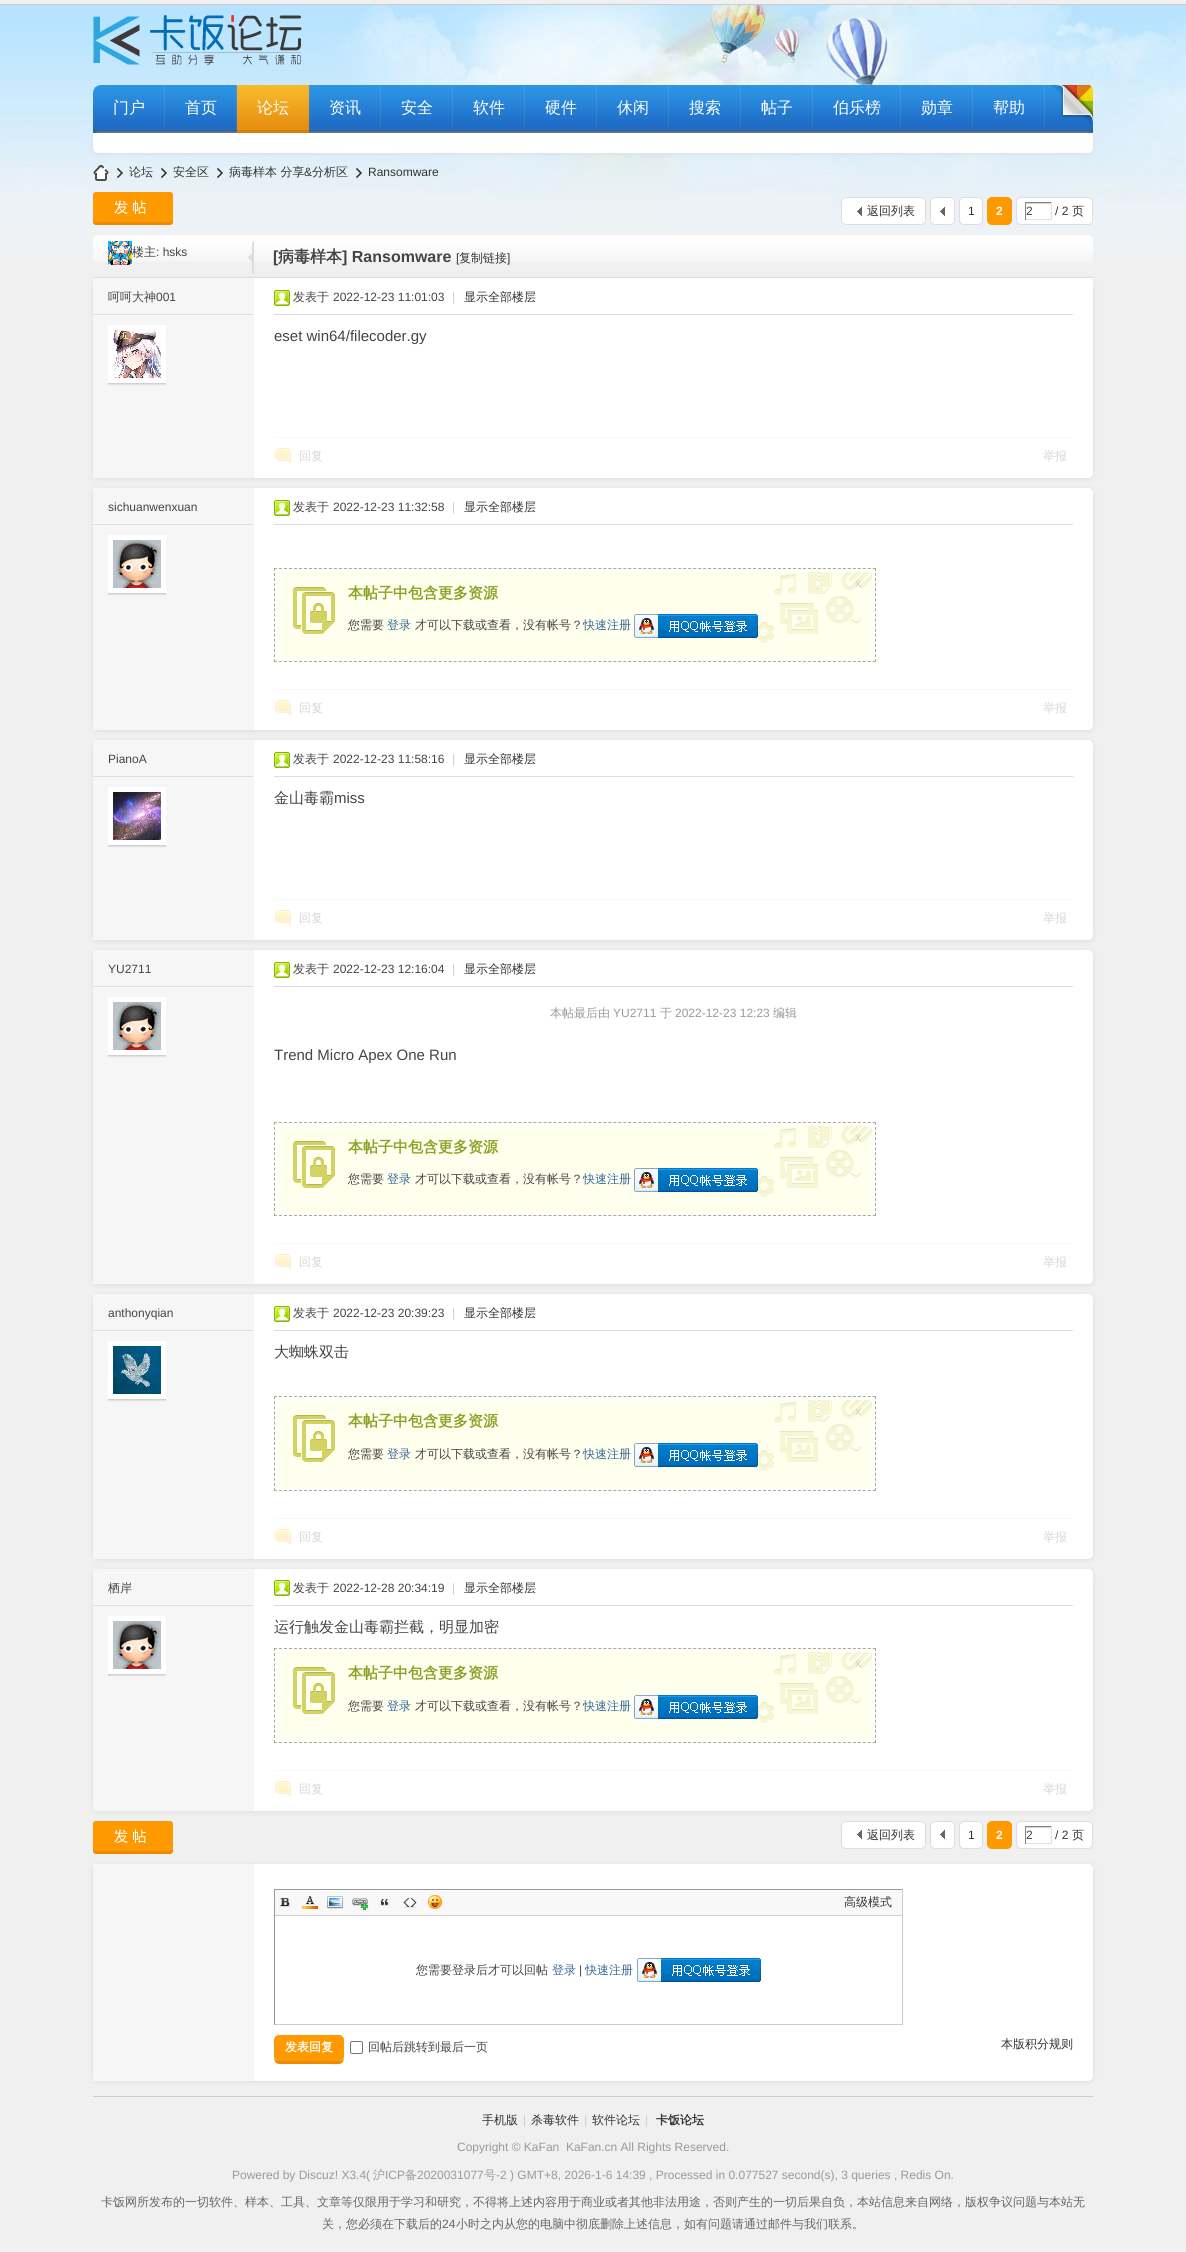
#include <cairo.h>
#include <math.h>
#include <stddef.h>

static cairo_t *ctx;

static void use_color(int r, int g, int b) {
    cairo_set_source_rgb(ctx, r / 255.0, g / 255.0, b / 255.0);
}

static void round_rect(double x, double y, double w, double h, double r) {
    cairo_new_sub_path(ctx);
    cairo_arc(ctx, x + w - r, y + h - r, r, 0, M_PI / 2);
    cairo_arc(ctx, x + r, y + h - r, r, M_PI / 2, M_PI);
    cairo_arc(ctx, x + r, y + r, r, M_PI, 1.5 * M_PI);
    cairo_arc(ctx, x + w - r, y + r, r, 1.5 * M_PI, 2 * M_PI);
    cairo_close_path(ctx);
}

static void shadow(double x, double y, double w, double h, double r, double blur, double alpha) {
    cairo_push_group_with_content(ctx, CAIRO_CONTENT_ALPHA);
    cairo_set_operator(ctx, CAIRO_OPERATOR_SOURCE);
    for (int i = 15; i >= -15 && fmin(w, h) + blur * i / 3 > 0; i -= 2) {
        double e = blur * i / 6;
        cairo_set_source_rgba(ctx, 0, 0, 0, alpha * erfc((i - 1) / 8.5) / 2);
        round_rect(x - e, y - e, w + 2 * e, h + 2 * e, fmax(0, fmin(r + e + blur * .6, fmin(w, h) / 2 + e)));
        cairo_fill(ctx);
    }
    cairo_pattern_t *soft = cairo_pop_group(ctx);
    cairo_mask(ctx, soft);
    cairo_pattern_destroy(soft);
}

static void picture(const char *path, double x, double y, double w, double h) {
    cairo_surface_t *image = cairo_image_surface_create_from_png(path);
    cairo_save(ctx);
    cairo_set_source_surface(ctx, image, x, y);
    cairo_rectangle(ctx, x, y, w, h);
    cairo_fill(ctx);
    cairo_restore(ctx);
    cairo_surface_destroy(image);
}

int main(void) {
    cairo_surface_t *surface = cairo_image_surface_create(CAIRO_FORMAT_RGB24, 1186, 2252);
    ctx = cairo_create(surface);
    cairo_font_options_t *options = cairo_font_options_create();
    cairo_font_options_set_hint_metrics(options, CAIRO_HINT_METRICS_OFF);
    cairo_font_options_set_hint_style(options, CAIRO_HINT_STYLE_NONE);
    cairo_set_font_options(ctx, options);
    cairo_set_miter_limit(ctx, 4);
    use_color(241, 240, 240);
    cairo_paint(ctx);
    picture("img1.png", 0, 5, 1186, 255);
    use_color(204, 204, 204);
    cairo_rectangle(ctx, 0, 4, 1186, 1);
    cairo_fill(ctx);
    picture("img2.png", 93, 15, 209, 50);
    picture("img3.png", 93, 85, 1000, 48);
    use_color(221, 221, 221);
    shadow(93, 134, 1000, 20, 5, 2.5, 1);
    picture("img4.png", 164, 85, 1, 45);
    cairo_select_font_face(ctx, "WenQuanYi Zen Hei Medium", CAIRO_FONT_SLANT_NORMAL, CAIRO_FONT_WEIGHT_NORMAL);
    cairo_set_font_size(ctx, 16);
    use_color(255, 255, 255);
    cairo_move_to(ctx, 113, 113);
    cairo_show_text(ctx, "门户");
    picture("img4.png", 236, 85, 1, 45);
    cairo_move_to(ctx, 185, 113);
    cairo_show_text(ctx, "首页");
    picture("img5.png", 237, 85, 72, 48);
    cairo_move_to(ctx, 257, 113);
    cairo_show_text(ctx, "论坛");
    picture("img4.png", 380, 85, 1, 45);
    cairo_move_to(ctx, 329, 113);
    cairo_show_text(ctx, "资讯");
    picture("img4.png", 452, 85, 1, 45);
    cairo_move_to(ctx, 401, 113);
    cairo_show_text(ctx, "安全");
    picture("img4.png", 524, 85, 1, 45);
    cairo_move_to(ctx, 473, 113);
    cairo_show_text(ctx, "软件");
    picture("img4.png", 596, 85, 1, 45);
    cairo_move_to(ctx, 545, 113);
    cairo_show_text(ctx, "硬件");
    picture("img4.png", 668, 85, 1, 45);
    cairo_move_to(ctx, 617, 113);
    cairo_show_text(ctx, "休闲");
    picture("img4.png", 740, 85, 1, 45);
    cairo_move_to(ctx, 689, 113);
    cairo_show_text(ctx, "搜索");
    picture("img4.png", 812, 85, 1, 45);
    cairo_move_to(ctx, 761, 113);
    cairo_show_text(ctx, "帖子");
    picture("img4.png", 900, 85, 1, 45);
    cairo_move_to(ctx, 833, 113);
    cairo_show_text(ctx, "伯乐榜");
    picture("img4.png", 972, 85, 1, 45);
    cairo_move_to(ctx, 921, 113);
    cairo_show_text(ctx, "勋章");
    picture("img4.png", 1044, 85, 1, 45);
    cairo_move_to(ctx, 993, 113);
    cairo_show_text(ctx, "帮助");
    picture("img6.png", 1051, 85, 42, 40);
    cairo_new_path(ctx);
    cairo_move_to(ctx, 93, 133);
    cairo_line_to(ctx, 1093, 133);
    cairo_line_to(ctx, 1093, 148);
    cairo_curve_to(ctx, 1093, 151, 1091, 153, 1088, 153);
    cairo_line_to(ctx, 98, 153);
    cairo_curve_to(ctx, 95, 153, 93, 151, 93, 148);
    cairo_close_path(ctx);
    cairo_fill(ctx);
    picture("img7.png", 93, 165, 16, 16);
    picture("img8.png", 117, 168, 6, 10);
    cairo_set_font_size(ctx, 12);
    use_color(51, 51, 51);
    cairo_move_to(ctx, 129, 176);
    cairo_show_text(ctx, "论坛");
    picture("img9.png", 161, 168, 6, 10);
    cairo_move_to(ctx, 173, 176);
    cairo_show_text(ctx, "安全区");
    picture("img10.png", 217, 168, 6, 10);
    cairo_move_to(ctx, 229, 176);
    cairo_show_text(ctx, "病毒样本 分享");
    cairo_select_font_face(ctx, "Liberation Sans", CAIRO_FONT_SLANT_NORMAL, CAIRO_FONT_WEIGHT_NORMAL);
    cairo_move_to(ctx, 304, 176);
    cairo_show_text(ctx, "&");
    cairo_select_font_face(ctx, "WenQuanYi Zen Hei Medium", CAIRO_FONT_SLANT_NORMAL, CAIRO_FONT_WEIGHT_NORMAL);
    cairo_move_to(ctx, 312, 176);
    cairo_show_text(ctx, "分析区");
    picture("img11.png", 356, 168, 6, 10);
    cairo_select_font_face(ctx, "Liberation Sans", CAIRO_FONT_SLANT_NORMAL, CAIRO_FONT_WEIGHT_NORMAL);
    cairo_move_to(ctx, 368, 176);
    cairo_show_text(ctx, "Ransomware");
    picture("img12.png", 93, 192, 80, 33);
    use_color(255, 255, 255);
    round_rect(841, 197, 85, 28, 5);
    cairo_fill(ctx);
    picture("img13.png", 857, 207, 5, 9);
    round_rect(841.5, 197.5, 84, 27, 4.5);
    use_color(221, 221, 221);
    cairo_set_line_width(ctx, 1);
    cairo_stroke(ctx);
    cairo_select_font_face(ctx, "WenQuanYi Zen Hei Medium", CAIRO_FONT_SLANT_NORMAL, CAIRO_FONT_WEIGHT_NORMAL);
    use_color(51, 51, 51);
    cairo_move_to(ctx, 867, 215);
    cairo_show_text(ctx, "返回列表");
    use_color(255, 255, 255);
    round_rect(930, 197, 25, 28, 5);
    cairo_fill(ctx);
    picture("img13.png", 940, 207, 5, 9);
    round_rect(930.5, 197.5, 24, 27, 4.5);
    use_color(221, 221, 221);
    cairo_stroke(ctx);
    use_color(255, 255, 255);
    round_rect(959.5, 197.5, 23, 27, 4.5);
    cairo_fill_preserve(ctx);
    use_color(221, 221, 221);
    cairo_stroke(ctx);
    cairo_select_font_face(ctx, "Liberation Sans", CAIRO_FONT_SLANT_NORMAL, CAIRO_FONT_WEIGHT_NORMAL);
    use_color(51, 51, 51);
    cairo_move_to(ctx, 968, 215);
    cairo_show_text(ctx, "1");
    use_color(255, 153, 0);
    round_rect(987.5, 197.5, 24, 27, 4.5);
    cairo_fill_preserve(ctx);
    cairo_stroke(ctx);
    cairo_select_font_face(ctx, "Liberation Sans", CAIRO_FONT_SLANT_NORMAL, CAIRO_FONT_WEIGHT_BOLD);
    use_color(255, 255, 255);
    cairo_move_to(ctx, 996, 215);
    cairo_show_text(ctx, "2");
    round_rect(1016.5, 197.5, 76, 27, 4.5);
    cairo_fill_preserve(ctx);
    use_color(221, 221, 221);
    cairo_stroke(ctx);
    use_color(212, 212, 212);
    cairo_rectangle(ctx, 1025, 203, 27, 1);
    cairo_fill(ctx);
    use_color(132, 132, 132);
    cairo_rectangle(ctx, 1025, 202, 27, 1);
    cairo_fill(ctx);
    use_color(224, 224, 224);
    cairo_rectangle(ctx, 1051, 202, 1, 18);
    cairo_fill(ctx);
    cairo_rectangle(ctx, 1025, 219, 27, 1);
    cairo_fill(ctx);
    use_color(132, 132, 132);
    cairo_rectangle(ctx, 1025, 202, 1, 18);
    cairo_fill(ctx);
    cairo_select_font_face(ctx, "Liberation Sans", CAIRO_FONT_SLANT_NORMAL, CAIRO_FONT_WEIGHT_NORMAL);
    use_color(68, 68, 68);
    cairo_move_to(ctx, 1026, 215);
    cairo_show_text(ctx, "2");
    use_color(51, 51, 51);
    cairo_move_to(ctx, 1055, 215);
    cairo_show_text(ctx, "/ 2");
    cairo_select_font_face(ctx, "WenQuanYi Zen Hei Medium", CAIRO_FONT_SLANT_NORMAL, CAIRO_FONT_WEIGHT_NORMAL);
    cairo_move_to(ctx, 1072, 215);
    cairo_show_text(ctx, "页");
    picture("img14.png", 93, 235, 1000, 27);
    use_color(221, 221, 221);
    cairo_rectangle(ctx, 93, 277, 1000, 1);
    cairo_fill(ctx);
    picture("img15.png", 108, 241, 24, 24);
    use_color(68, 68, 68);
    cairo_move_to(ctx, 132, 256);
    cairo_show_text(ctx, "楼主");
    cairo_select_font_face(ctx, "Liberation Sans", CAIRO_FONT_SLANT_NORMAL, CAIRO_FONT_WEIGHT_NORMAL);
    cairo_move_to(ctx, 156, 256);
    cairo_show_text(ctx, ": hsks");
    use_color(221, 221, 221);
    shadow(93, 279, 1000, 200, 5, 2.5, 1);
    picture("img16.png", 248, 241, 6, 33);
    cairo_select_font_face(ctx, "Liberation Sans", CAIRO_FONT_SLANT_NORMAL, CAIRO_FONT_WEIGHT_BOLD);
    cairo_set_font_size(ctx, 16);
    use_color(68, 68, 68);
    cairo_move_to(ctx, 273, 262);
    cairo_show_text(ctx, "[");
    cairo_select_font_face(ctx, "WenQuanYi Zen Hei", CAIRO_FONT_SLANT_NORMAL, CAIRO_FONT_WEIGHT_BOLD);
    cairo_move_to(ctx, 278, 262);
    cairo_show_text(ctx, "病毒样本");
    cairo_select_font_face(ctx, "Liberation Sans", CAIRO_FONT_SLANT_NORMAL, CAIRO_FONT_WEIGHT_BOLD);
    cairo_move_to(ctx, 342, 262);
    cairo_show_text(ctx, "] Ransomware");
    cairo_select_font_face(ctx, "Liberation Sans", CAIRO_FONT_SLANT_NORMAL, CAIRO_FONT_WEIGHT_NORMAL);
    cairo_set_font_size(ctx, 12);
    use_color(51, 51, 51);
    cairo_move_to(ctx, 456, 262);
    cairo_show_text(ctx, "[");
    cairo_select_font_face(ctx, "WenQuanYi Zen Hei Medium", CAIRO_FONT_SLANT_NORMAL, CAIRO_FONT_WEIGHT_NORMAL);
    cairo_move_to(ctx, 459, 262);
    cairo_show_text(ctx, "复制链接");
    cairo_select_font_face(ctx, "Liberation Sans", CAIRO_FONT_SLANT_NORMAL, CAIRO_FONT_WEIGHT_NORMAL);
    cairo_move_to(ctx, 507, 262);
    cairo_show_text(ctx, "]");
    use_color(255, 255, 255);
    cairo_new_path(ctx);
    cairo_move_to(ctx, 93, 278);
    cairo_line_to(ctx, 1093, 278);
    cairo_line_to(ctx, 1093, 473);
    cairo_curve_to(ctx, 1093, 476, 1091, 478, 1088, 478);
    cairo_line_to(ctx, 98, 478);
    cairo_curve_to(ctx, 95, 478, 93, 476, 93, 473);
    cairo_close_path(ctx);
    cairo_fill(ctx);
    use_color(221, 221, 221);
    cairo_rectangle(ctx, 253, 474, 1, 5);
    cairo_fill(ctx);
    use_color(246, 246, 246);
    cairo_rectangle(ctx, 93, 278, 161, 200);
    cairo_fill(ctx);
    use_color(221, 221, 221);
    cairo_rectangle(ctx, 93, 314, 160, 1);
    cairo_fill(ctx);
    cairo_select_font_face(ctx, "WenQuanYi Zen Hei Medium", CAIRO_FONT_SLANT_NORMAL, CAIRO_FONT_WEIGHT_NORMAL);
    use_color(68, 68, 68);
    cairo_move_to(ctx, 108, 301);
    cairo_show_text(ctx, "呵呵大神");
    cairo_select_font_face(ctx, "Liberation Sans", CAIRO_FONT_SLANT_NORMAL, CAIRO_FONT_WEIGHT_NORMAL);
    cairo_move_to(ctx, 156, 301);
    cairo_show_text(ctx, "001");
    use_color(255, 255, 255);
    cairo_rectangle(ctx, 108, 325, 58, 58);
    cairo_fill(ctx);
    picture("img17.png", 108, 330, 58, 56);
    use_color(221, 221, 221);
    cairo_rectangle(ctx, 274, 314, 799, 1);
    cairo_fill(ctx);
    picture("img18.png", 274, 290, 16, 16);
    cairo_select_font_face(ctx, "WenQuanYi Zen Hei Medium", CAIRO_FONT_SLANT_NORMAL, CAIRO_FONT_WEIGHT_NORMAL);
    use_color(68, 68, 68);
    cairo_move_to(ctx, 293, 301);
    cairo_show_text(ctx, "发表于");
    cairo_select_font_face(ctx, "Liberation Sans", CAIRO_FONT_SLANT_NORMAL, CAIRO_FONT_WEIGHT_NORMAL);
    cairo_move_to(ctx, 333, 301);
    cairo_show_text(ctx, "2022-12-23 11:01:03");
    use_color(204, 204, 204);
    cairo_move_to(ctx, 452, 301);
    cairo_show_text(ctx, "|");
    cairo_select_font_face(ctx, "WenQuanYi Zen Hei Medium", CAIRO_FONT_SLANT_NORMAL, CAIRO_FONT_WEIGHT_NORMAL);
    use_color(51, 51, 51);
    cairo_move_to(ctx, 464, 301);
    cairo_show_text(ctx, "显示全部楼层");
    cairo_select_font_face(ctx, "Liberation Sans", CAIRO_FONT_SLANT_NORMAL, CAIRO_FONT_WEIGHT_NORMAL);
    cairo_set_font_size(ctx, 15);
    use_color(68, 68, 68);
    cairo_move_to(ctx, 274, 341);
    cairo_show_text(ctx, "eset win64/filecoder.gy");
    use_color(248, 248, 248);
    cairo_rectangle(ctx, 274, 437, 799, 1);
    cairo_fill(ctx);
    picture("img19.png", 275, 448, 16, 15);
    cairo_select_font_face(ctx, "WenQuanYi Zen Hei Medium", CAIRO_FONT_SLANT_NORMAL, CAIRO_FONT_WEIGHT_NORMAL);
    cairo_set_font_size(ctx, 12);
    use_color(214, 214, 214);
    cairo_move_to(ctx, 299, 460);
    cairo_show_text(ctx, "回复");
    cairo_move_to(ctx, 1043, 460);
    cairo_show_text(ctx, "举报");
    use_color(221, 221, 221);
    shadow(93, 489, 1000, 242, 5, 2.5, 1);
    use_color(255, 255, 255);
    round_rect(93, 488, 1000, 242, 5);
    cairo_fill(ctx);
    use_color(221, 221, 221);
    cairo_rectangle(ctx, 253, 726, 1, 5);
    cairo_fill(ctx);
    use_color(246, 246, 246);
    cairo_rectangle(ctx, 93, 488, 161, 242);
    cairo_fill(ctx);
    use_color(221, 221, 221);
    cairo_rectangle(ctx, 93, 524, 160, 1);
    cairo_fill(ctx);
    cairo_select_font_face(ctx, "Liberation Sans", CAIRO_FONT_SLANT_NORMAL, CAIRO_FONT_WEIGHT_NORMAL);
    use_color(68, 68, 68);
    cairo_move_to(ctx, 108, 511);
    cairo_show_text(ctx, "sichuanwenxuan");
    use_color(255, 255, 255);
    cairo_rectangle(ctx, 108, 535, 58, 58);
    cairo_fill(ctx);
    picture("img20.png", 108, 540, 58, 56);
    use_color(221, 221, 221);
    cairo_rectangle(ctx, 274, 524, 799, 1);
    cairo_fill(ctx);
    picture("img18.png", 274, 500, 16, 16);
    cairo_select_font_face(ctx, "WenQuanYi Zen Hei Medium", CAIRO_FONT_SLANT_NORMAL, CAIRO_FONT_WEIGHT_NORMAL);
    use_color(68, 68, 68);
    cairo_move_to(ctx, 293, 511);
    cairo_show_text(ctx, "发表于");
    cairo_select_font_face(ctx, "Liberation Sans", CAIRO_FONT_SLANT_NORMAL, CAIRO_FONT_WEIGHT_NORMAL);
    cairo_move_to(ctx, 333, 511);
    cairo_show_text(ctx, "2022-12-23 11:32:58");
    use_color(204, 204, 204);
    cairo_move_to(ctx, 452, 511);
    cairo_show_text(ctx, "|");
    cairo_select_font_face(ctx, "WenQuanYi Zen Hei Medium", CAIRO_FONT_SLANT_NORMAL, CAIRO_FONT_WEIGHT_NORMAL);
    use_color(51, 51, 51);
    cairo_move_to(ctx, 464, 511);
    cairo_show_text(ctx, "显示全部楼层");
    use_color(255, 255, 238);
    cairo_rectangle(ctx, 274, 568, 602, 94);
    cairo_fill(ctx);
    picture("img21.png", 754, 572, 118, 72);
    cairo_new_path(ctx);
    cairo_move_to(ctx, 274, 568.5);
    cairo_line_to(ctx, 876, 568.5);
    use_color(170, 170, 146);
    cairo_set_dash(ctx, (double[]){3, 1.99}, 2, 0);
    cairo_stroke(ctx);
    cairo_new_path(ctx);
    cairo_move_to(ctx, 875.5, 568);
    cairo_line_to(ctx, 875.5, 662);
    cairo_set_dash(ctx, (double[]){3, 2.06}, 2, 0);
    cairo_stroke(ctx);
    cairo_new_path(ctx);
    cairo_move_to(ctx, 274, 661.5);
    cairo_line_to(ctx, 876, 661.5);
    cairo_set_dash(ctx, (double[]){3, 1.99}, 2, 0);
    cairo_stroke(ctx);
    cairo_new_path(ctx);
    cairo_move_to(ctx, 274.5, 568);
    cairo_line_to(ctx, 274.5, 662);
    cairo_set_dash(ctx, (double[]){3, 2.06}, 2, 0);
    cairo_stroke(ctx);
    picture("img22.png", 293, 587, 42, 48);
    cairo_rectangle(ctx, 276.5, 570.5, 597, 89);
    use_color(255, 255, 255);
    cairo_set_line_width(ctx, 3);
    cairo_set_dash(ctx, NULL, 0, 0);
    cairo_stroke(ctx);
    cairo_select_font_face(ctx, "Liberation Sans", CAIRO_FONT_SLANT_NORMAL, CAIRO_FONT_WEIGHT_NORMAL);
    use_color(204, 204, 204);
    cairo_move_to(ctx, 855, 587);
    cairo_show_text(ctx, "x");
    cairo_select_font_face(ctx, "WenQuanYi Zen Hei", CAIRO_FONT_SLANT_NORMAL, CAIRO_FONT_WEIGHT_BOLD);
    cairo_set_font_size(ctx, 15);
    use_color(140, 162, 38);
    cairo_move_to(ctx, 348, 598);
    cairo_show_text(ctx, "本帖子中包含更多资源");
    cairo_select_font_face(ctx, "WenQuanYi Zen Hei Medium", CAIRO_FONT_SLANT_NORMAL, CAIRO_FONT_WEIGHT_NORMAL);
    cairo_set_font_size(ctx, 12);
    use_color(68, 68, 68);
    cairo_move_to(ctx, 348, 629);
    cairo_show_text(ctx, "您需要");
    use_color(51, 102, 153);
    cairo_move_to(ctx, 387, 629);
    cairo_show_text(ctx, "登录");
    use_color(68, 68, 68);
    cairo_move_to(ctx, 415, 629);
    cairo_show_text(ctx, "才可以下载或查看，没有帐号？");
    use_color(51, 102, 153);
    cairo_move_to(ctx, 583, 629);
    cairo_show_text(ctx, "快速注册");
    picture("img23.png", 634, 614, 124, 24);
    use_color(248, 248, 248);
    cairo_rectangle(ctx, 274, 689, 799, 1);
    cairo_fill(ctx);
    picture("img19.png", 275, 700, 16, 15);
    use_color(214, 214, 214);
    cairo_move_to(ctx, 299, 712);
    cairo_show_text(ctx, "回复");
    cairo_move_to(ctx, 1043, 712);
    cairo_show_text(ctx, "举报");
    use_color(221, 221, 221);
    shadow(93, 741, 1000, 200, 5, 2.5, 1);
    use_color(255, 255, 255);
    round_rect(93, 740, 1000, 200, 5);
    cairo_fill(ctx);
    use_color(221, 221, 221);
    cairo_rectangle(ctx, 253, 936, 1, 5);
    cairo_fill(ctx);
    use_color(246, 246, 246);
    cairo_rectangle(ctx, 93, 740, 161, 200);
    cairo_fill(ctx);
    use_color(221, 221, 221);
    cairo_rectangle(ctx, 93, 776, 160, 1);
    cairo_fill(ctx);
    cairo_select_font_face(ctx, "Liberation Sans", CAIRO_FONT_SLANT_NORMAL, CAIRO_FONT_WEIGHT_NORMAL);
    use_color(68, 68, 68);
    cairo_move_to(ctx, 108, 763);
    cairo_show_text(ctx, "PianoA");
    use_color(255, 255, 255);
    cairo_rectangle(ctx, 108, 787, 58, 58);
    cairo_fill(ctx);
    picture("img24.png", 108, 792, 58, 56);
    use_color(221, 221, 221);
    cairo_rectangle(ctx, 274, 776, 799, 1);
    cairo_fill(ctx);
    picture("img18.png", 274, 752, 16, 16);
    cairo_select_font_face(ctx, "WenQuanYi Zen Hei Medium", CAIRO_FONT_SLANT_NORMAL, CAIRO_FONT_WEIGHT_NORMAL);
    use_color(68, 68, 68);
    cairo_move_to(ctx, 293, 763);
    cairo_show_text(ctx, "发表于");
    cairo_select_font_face(ctx, "Liberation Sans", CAIRO_FONT_SLANT_NORMAL, CAIRO_FONT_WEIGHT_NORMAL);
    cairo_move_to(ctx, 333, 763);
    cairo_show_text(ctx, "2022-12-23 11:58:16");
    use_color(204, 204, 204);
    cairo_move_to(ctx, 452, 763);
    cairo_show_text(ctx, "|");
    cairo_select_font_face(ctx, "WenQuanYi Zen Hei Medium", CAIRO_FONT_SLANT_NORMAL, CAIRO_FONT_WEIGHT_NORMAL);
    use_color(51, 51, 51);
    cairo_move_to(ctx, 464, 763);
    cairo_show_text(ctx, "显示全部楼层");
    cairo_set_font_size(ctx, 15);
    use_color(68, 68, 68);
    cairo_move_to(ctx, 274, 803);
    cairo_show_text(ctx, "金山毒霸");
    cairo_select_font_face(ctx, "Liberation Sans", CAIRO_FONT_SLANT_NORMAL, CAIRO_FONT_WEIGHT_NORMAL);
    cairo_move_to(ctx, 334, 803);
    cairo_show_text(ctx, "miss");
    use_color(248, 248, 248);
    cairo_rectangle(ctx, 274, 899, 799, 1);
    cairo_fill(ctx);
    picture("img19.png", 275, 910, 16, 15);
    cairo_select_font_face(ctx, "WenQuanYi Zen Hei Medium", CAIRO_FONT_SLANT_NORMAL, CAIRO_FONT_WEIGHT_NORMAL);
    cairo_set_font_size(ctx, 12);
    use_color(214, 214, 214);
    cairo_move_to(ctx, 299, 922);
    cairo_show_text(ctx, "回复");
    cairo_move_to(ctx, 1043, 922);
    cairo_show_text(ctx, "举报");
    use_color(221, 221, 221);
    shadow(93, 951, 1000, 334, 5, 2.5, 1);
    use_color(255, 255, 255);
    round_rect(93, 950, 1000, 334, 5);
    cairo_fill(ctx);
    use_color(221, 221, 221);
    cairo_rectangle(ctx, 253, 1280, 1, 5);
    cairo_fill(ctx);
    use_color(246, 246, 246);
    cairo_rectangle(ctx, 93, 950, 161, 334);
    cairo_fill(ctx);
    use_color(221, 221, 221);
    cairo_rectangle(ctx, 93, 986, 160, 1);
    cairo_fill(ctx);
    cairo_select_font_face(ctx, "Liberation Sans", CAIRO_FONT_SLANT_NORMAL, CAIRO_FONT_WEIGHT_NORMAL);
    use_color(68, 68, 68);
    cairo_move_to(ctx, 108, 973);
    cairo_show_text(ctx, "YU2711");
    use_color(255, 255, 255);
    cairo_rectangle(ctx, 108, 997, 58, 58);
    cairo_fill(ctx);
    picture("img20.png", 108, 1002, 58, 56);
    use_color(221, 221, 221);
    cairo_rectangle(ctx, 274, 986, 799, 1);
    cairo_fill(ctx);
    picture("img18.png", 274, 962, 16, 16);
    cairo_select_font_face(ctx, "WenQuanYi Zen Hei Medium", CAIRO_FONT_SLANT_NORMAL, CAIRO_FONT_WEIGHT_NORMAL);
    use_color(68, 68, 68);
    cairo_move_to(ctx, 293, 973);
    cairo_show_text(ctx, "发表于");
    cairo_select_font_face(ctx, "Liberation Sans", CAIRO_FONT_SLANT_NORMAL, CAIRO_FONT_WEIGHT_NORMAL);
    cairo_move_to(ctx, 333, 973);
    cairo_show_text(ctx, "2022-12-23 12:16:04");
    use_color(204, 204, 204);
    cairo_move_to(ctx, 452, 973);
    cairo_show_text(ctx, "|");
    cairo_select_font_face(ctx, "WenQuanYi Zen Hei Medium", CAIRO_FONT_SLANT_NORMAL, CAIRO_FONT_WEIGHT_NORMAL);
    use_color(51, 51, 51);
    cairo_move_to(ctx, 464, 973);
    cairo_show_text(ctx, "显示全部楼层");
    use_color(153, 153, 153);
    cairo_move_to(ctx, 550, 1017);
    cairo_show_text(ctx, "本帖最后由");
    cairo_select_font_face(ctx, "Liberation Sans", CAIRO_FONT_SLANT_NORMAL, CAIRO_FONT_WEIGHT_NORMAL);
    cairo_move_to(ctx, 613, 1017);
    cairo_show_text(ctx, "YU2711");
    cairo_select_font_face(ctx, "WenQuanYi Zen Hei Medium", CAIRO_FONT_SLANT_NORMAL, CAIRO_FONT_WEIGHT_NORMAL);
    cairo_move_to(ctx, 660, 1017);
    cairo_show_text(ctx, "于");
    cairo_select_font_face(ctx, "Liberation Sans", CAIRO_FONT_SLANT_NORMAL, CAIRO_FONT_WEIGHT_NORMAL);
    cairo_move_to(ctx, 675, 1017);
    cairo_show_text(ctx, "2022-12-23 12:23");
    cairo_select_font_face(ctx, "WenQuanYi Zen Hei Medium", CAIRO_FONT_SLANT_NORMAL, CAIRO_FONT_WEIGHT_NORMAL);
    cairo_move_to(ctx, 773, 1017);
    cairo_show_text(ctx, "编辑");
    cairo_select_font_face(ctx, "Liberation Sans", CAIRO_FONT_SLANT_NORMAL, CAIRO_FONT_WEIGHT_NORMAL);
    cairo_set_font_size(ctx, 15);
    use_color(68, 68, 68);
    cairo_move_to(ctx, 274, 1060);
    cairo_show_text(ctx, "Trend Micro Apex One Run");
    use_color(255, 255, 238);
    cairo_rectangle(ctx, 274, 1122, 602, 94);
    cairo_fill(ctx);
    picture("img21.png", 754, 1126, 118, 72);
    cairo_new_path(ctx);
    cairo_move_to(ctx, 274, 1122.5);
    cairo_line_to(ctx, 876, 1122.5);
    use_color(170, 170, 146);
    cairo_set_line_width(ctx, 1);
    cairo_set_dash(ctx, (double[]){3, 1.99}, 2, 0);
    cairo_stroke(ctx);
    cairo_new_path(ctx);
    cairo_move_to(ctx, 875.5, 1122);
    cairo_line_to(ctx, 875.5, 1216);
    cairo_set_dash(ctx, (double[]){3, 2.06}, 2, 0);
    cairo_stroke(ctx);
    cairo_new_path(ctx);
    cairo_move_to(ctx, 274, 1215.5);
    cairo_line_to(ctx, 876, 1215.5);
    cairo_set_dash(ctx, (double[]){3, 1.99}, 2, 0);
    cairo_stroke(ctx);
    cairo_new_path(ctx);
    cairo_move_to(ctx, 274.5, 1122);
    cairo_line_to(ctx, 274.5, 1216);
    cairo_set_dash(ctx, (double[]){3, 2.06}, 2, 0);
    cairo_stroke(ctx);
    picture("img22.png", 293, 1141, 42, 48);
    cairo_rectangle(ctx, 276.5, 1124.5, 597, 89);
    use_color(255, 255, 255);
    cairo_set_line_width(ctx, 3);
    cairo_set_dash(ctx, NULL, 0, 0);
    cairo_stroke(ctx);
    cairo_set_font_size(ctx, 12);
    use_color(204, 204, 204);
    cairo_move_to(ctx, 855, 1141);
    cairo_show_text(ctx, "x");
    cairo_select_font_face(ctx, "WenQuanYi Zen Hei", CAIRO_FONT_SLANT_NORMAL, CAIRO_FONT_WEIGHT_BOLD);
    cairo_set_font_size(ctx, 15);
    use_color(140, 162, 38);
    cairo_move_to(ctx, 348, 1152);
    cairo_show_text(ctx, "本帖子中包含更多资源");
    cairo_select_font_face(ctx, "WenQuanYi Zen Hei Medium", CAIRO_FONT_SLANT_NORMAL, CAIRO_FONT_WEIGHT_NORMAL);
    cairo_set_font_size(ctx, 12);
    use_color(68, 68, 68);
    cairo_move_to(ctx, 348, 1183);
    cairo_show_text(ctx, "您需要");
    use_color(51, 102, 153);
    cairo_move_to(ctx, 387, 1183);
    cairo_show_text(ctx, "登录");
    use_color(68, 68, 68);
    cairo_move_to(ctx, 415, 1183);
    cairo_show_text(ctx, "才可以下载或查看，没有帐号？");
    use_color(51, 102, 153);
    cairo_move_to(ctx, 583, 1183);
    cairo_show_text(ctx, "快速注册");
    picture("img23.png", 634, 1168, 124, 24);
    use_color(248, 248, 248);
    cairo_rectangle(ctx, 274, 1243, 799, 1);
    cairo_fill(ctx);
    picture("img19.png", 275, 1254, 16, 15);
    use_color(214, 214, 214);
    cairo_move_to(ctx, 299, 1266);
    cairo_show_text(ctx, "回复");
    cairo_move_to(ctx, 1043, 1266);
    cairo_show_text(ctx, "举报");
    use_color(221, 221, 221);
    shadow(93, 1295, 1000, 265, 5, 2.5, 1);
    use_color(255, 255, 255);
    round_rect(93, 1294, 1000, 265, 5);
    cairo_fill(ctx);
    use_color(246, 246, 246);
    cairo_rectangle(ctx, 93, 1294, 161, 265);
    cairo_fill(ctx);
    use_color(221, 221, 221);
    cairo_rectangle(ctx, 93, 1330, 160, 1);
    cairo_fill(ctx);
    cairo_select_font_face(ctx, "Liberation Sans", CAIRO_FONT_SLANT_NORMAL, CAIRO_FONT_WEIGHT_NORMAL);
    use_color(68, 68, 68);
    cairo_move_to(ctx, 108, 1317);
    cairo_show_text(ctx, "anthonyqian");
    use_color(255, 255, 255);
    cairo_rectangle(ctx, 108, 1341, 58, 58);
    cairo_fill(ctx);
    picture("img25.png", 108, 1346, 58, 56);
    use_color(221, 221, 221);
    cairo_rectangle(ctx, 274, 1330, 799, 1);
    cairo_fill(ctx);
    picture("img18.png", 274, 1306, 16, 16);
    cairo_select_font_face(ctx, "WenQuanYi Zen Hei Medium", CAIRO_FONT_SLANT_NORMAL, CAIRO_FONT_WEIGHT_NORMAL);
    use_color(68, 68, 68);
    cairo_move_to(ctx, 293, 1317);
    cairo_show_text(ctx, "发表于");
    cairo_select_font_face(ctx, "Liberation Sans", CAIRO_FONT_SLANT_NORMAL, CAIRO_FONT_WEIGHT_NORMAL);
    cairo_move_to(ctx, 333, 1317);
    cairo_show_text(ctx, "2022-12-23 20:39:23");
    use_color(204, 204, 204);
    cairo_move_to(ctx, 452, 1317);
    cairo_show_text(ctx, "|");
    cairo_select_font_face(ctx, "WenQuanYi Zen Hei Medium", CAIRO_FONT_SLANT_NORMAL, CAIRO_FONT_WEIGHT_NORMAL);
    use_color(51, 51, 51);
    cairo_move_to(ctx, 464, 1317);
    cairo_show_text(ctx, "显示全部楼层");
    cairo_set_font_size(ctx, 15);
    use_color(68, 68, 68);
    cairo_move_to(ctx, 274, 1357);
    cairo_show_text(ctx, "大蜘蛛双击");
    use_color(255, 255, 238);
    cairo_rectangle(ctx, 274, 1396, 602, 95);
    cairo_fill(ctx);
    picture("img26.png", 755, 1400, 117, 72);
    cairo_new_path(ctx);
    cairo_move_to(ctx, 274, 1396.5);
    cairo_line_to(ctx, 876, 1396.5);
    use_color(170, 170, 146);
    cairo_set_line_width(ctx, 1);
    cairo_set_dash(ctx, (double[]){3, 1.99}, 2, 0);
    cairo_stroke(ctx);
    cairo_new_path(ctx);
    cairo_move_to(ctx, 875.5, 1396);
    cairo_line_to(ctx, 875.5, 1491);
    cairo_set_dash(ctx, (double[]){3, 2.11}, 2, 0);
    cairo_stroke(ctx);
    cairo_new_path(ctx);
    cairo_move_to(ctx, 274, 1490.5);
    cairo_line_to(ctx, 876, 1490.5);
    cairo_set_dash(ctx, (double[]){3, 1.99}, 2, 0);
    cairo_stroke(ctx);
    cairo_new_path(ctx);
    cairo_move_to(ctx, 274.5, 1396);
    cairo_line_to(ctx, 274.5, 1491);
    cairo_set_dash(ctx, (double[]){3, 2.11}, 2, 0);
    cairo_stroke(ctx);
    picture("img22.png", 293, 1415, 42, 48);
    cairo_rectangle(ctx, 276.5, 1398.5, 597, 90);
    use_color(255, 255, 255);
    cairo_set_line_width(ctx, 3);
    cairo_set_dash(ctx, NULL, 0, 0);
    cairo_stroke(ctx);
    cairo_select_font_face(ctx, "Liberation Sans", CAIRO_FONT_SLANT_NORMAL, CAIRO_FONT_WEIGHT_NORMAL);
    cairo_set_font_size(ctx, 12);
    use_color(204, 204, 204);
    cairo_move_to(ctx, 855, 1415);
    cairo_show_text(ctx, "x");
    cairo_select_font_face(ctx, "WenQuanYi Zen Hei", CAIRO_FONT_SLANT_NORMAL, CAIRO_FONT_WEIGHT_BOLD);
    cairo_set_font_size(ctx, 15);
    use_color(140, 162, 38);
    cairo_move_to(ctx, 348, 1426);
    cairo_show_text(ctx, "本帖子中包含更多资源");
    cairo_select_font_face(ctx, "WenQuanYi Zen Hei Medium", CAIRO_FONT_SLANT_NORMAL, CAIRO_FONT_WEIGHT_NORMAL);
    cairo_set_font_size(ctx, 12);
    use_color(68, 68, 68);
    cairo_move_to(ctx, 348, 1458);
    cairo_show_text(ctx, "您需要");
    use_color(51, 102, 153);
    cairo_move_to(ctx, 387, 1458);
    cairo_show_text(ctx, "登录");
    use_color(68, 68, 68);
    cairo_move_to(ctx, 415, 1458);
    cairo_show_text(ctx, "才可以下载或查看，没有帐号？");
    use_color(51, 102, 153);
    cairo_move_to(ctx, 583, 1458);
    cairo_show_text(ctx, "快速注册");
    picture("img23.png", 634, 1443, 124, 24);
    use_color(248, 248, 248);
    cairo_rectangle(ctx, 274, 1518, 799, 1);
    cairo_fill(ctx);
    picture("img19.png", 275, 1529, 16, 15);
    use_color(214, 214, 214);
    cairo_move_to(ctx, 299, 1541);
    cairo_show_text(ctx, "回复");
    cairo_move_to(ctx, 1043, 1541);
    cairo_show_text(ctx, "举报");
    use_color(221, 221, 221);
    shadow(93, 1570, 1000, 242, 5, 2.5, 1);
    use_color(255, 255, 255);
    round_rect(93, 1569, 1000, 242, 5);
    cairo_fill(ctx);
    use_color(221, 221, 221);
    cairo_rectangle(ctx, 253, 1568, 1, 1);
    cairo_fill(ctx);
    use_color(246, 246, 246);
    cairo_rectangle(ctx, 93, 1569, 161, 242);
    cairo_fill(ctx);
    use_color(221, 221, 221);
    cairo_rectangle(ctx, 93, 1605, 160, 1);
    cairo_fill(ctx);
    use_color(68, 68, 68);
    cairo_move_to(ctx, 108, 1592);
    cairo_show_text(ctx, "栖岸");
    use_color(255, 255, 255);
    cairo_rectangle(ctx, 108, 1616, 58, 58);
    cairo_fill(ctx);
    picture("img20.png", 108, 1621, 58, 56);
    use_color(221, 221, 221);
    cairo_rectangle(ctx, 274, 1605, 799, 1);
    cairo_fill(ctx);
    picture("img18.png", 274, 1580, 16, 16);
    use_color(68, 68, 68);
    cairo_move_to(ctx, 293, 1592);
    cairo_show_text(ctx, "发表于");
    cairo_select_font_face(ctx, "Liberation Sans", CAIRO_FONT_SLANT_NORMAL, CAIRO_FONT_WEIGHT_NORMAL);
    cairo_move_to(ctx, 333, 1592);
    cairo_show_text(ctx, "2022-12-28 20:34:19");
    use_color(204, 204, 204);
    cairo_move_to(ctx, 452, 1592);
    cairo_show_text(ctx, "|");
    cairo_select_font_face(ctx, "WenQuanYi Zen Hei Medium", CAIRO_FONT_SLANT_NORMAL, CAIRO_FONT_WEIGHT_NORMAL);
    use_color(51, 51, 51);
    cairo_move_to(ctx, 464, 1592);
    cairo_show_text(ctx, "显示全部楼层");
    cairo_set_font_size(ctx, 15);
    use_color(68, 68, 68);
    cairo_move_to(ctx, 274, 1632);
    cairo_show_text(ctx, "运行触发金山毒霸拦截，明显加密");
    use_color(255, 255, 238);
    cairo_rectangle(ctx, 274, 1648, 602, 95);
    cairo_fill(ctx);
    picture("img26.png", 755, 1652, 117, 72);
    cairo_new_path(ctx);
    cairo_move_to(ctx, 274, 1648.5);
    cairo_line_to(ctx, 876, 1648.5);
    use_color(170, 170, 146);
    cairo_set_line_width(ctx, 1);
    cairo_set_dash(ctx, (double[]){3, 1.99}, 2, 0);
    cairo_stroke(ctx);
    cairo_new_path(ctx);
    cairo_move_to(ctx, 875.5, 1648);
    cairo_line_to(ctx, 875.5, 1743);
    cairo_set_dash(ctx, (double[]){3, 2.11}, 2, 0);
    cairo_stroke(ctx);
    cairo_new_path(ctx);
    cairo_move_to(ctx, 274, 1742.5);
    cairo_line_to(ctx, 876, 1742.5);
    cairo_set_dash(ctx, (double[]){3, 1.99}, 2, 0);
    cairo_stroke(ctx);
    cairo_new_path(ctx);
    cairo_move_to(ctx, 274.5, 1648);
    cairo_line_to(ctx, 274.5, 1743);
    cairo_set_dash(ctx, (double[]){3, 2.11}, 2, 0);
    cairo_stroke(ctx);
    picture("img22.png", 293, 1667, 42, 48);
    cairo_rectangle(ctx, 276.5, 1650.5, 597, 90);
    use_color(255, 255, 255);
    cairo_set_line_width(ctx, 3);
    cairo_set_dash(ctx, NULL, 0, 0);
    cairo_stroke(ctx);
    cairo_select_font_face(ctx, "Liberation Sans", CAIRO_FONT_SLANT_NORMAL, CAIRO_FONT_WEIGHT_NORMAL);
    cairo_set_font_size(ctx, 12);
    use_color(204, 204, 204);
    cairo_move_to(ctx, 855, 1667);
    cairo_show_text(ctx, "x");
    cairo_select_font_face(ctx, "WenQuanYi Zen Hei", CAIRO_FONT_SLANT_NORMAL, CAIRO_FONT_WEIGHT_BOLD);
    cairo_set_font_size(ctx, 15);
    use_color(140, 162, 38);
    cairo_move_to(ctx, 348, 1678);
    cairo_show_text(ctx, "本帖子中包含更多资源");
    cairo_select_font_face(ctx, "WenQuanYi Zen Hei Medium", CAIRO_FONT_SLANT_NORMAL, CAIRO_FONT_WEIGHT_NORMAL);
    cairo_set_font_size(ctx, 12);
    use_color(68, 68, 68);
    cairo_move_to(ctx, 348, 1710);
    cairo_show_text(ctx, "您需要");
    use_color(51, 102, 153);
    cairo_move_to(ctx, 387, 1710);
    cairo_show_text(ctx, "登录");
    use_color(68, 68, 68);
    cairo_move_to(ctx, 415, 1710);
    cairo_show_text(ctx, "才可以下载或查看，没有帐号？");
    use_color(51, 102, 153);
    cairo_move_to(ctx, 583, 1710);
    cairo_show_text(ctx, "快速注册");
    picture("img23.png", 634, 1695, 124, 24);
    use_color(248, 248, 248);
    cairo_rectangle(ctx, 274, 1770, 799, 1);
    cairo_fill(ctx);
    picture("img19.png", 275, 1781, 16, 15);
    use_color(214, 214, 214);
    cairo_move_to(ctx, 299, 1793);
    cairo_show_text(ctx, "回复");
    cairo_move_to(ctx, 1043, 1793);
    cairo_show_text(ctx, "举报");
    picture("img27.png", 93, 1821, 80, 33);
    use_color(255, 255, 255);
    round_rect(841, 1821, 85, 28, 5);
    cairo_fill(ctx);
    picture("img13.png", 857, 1830, 5, 9);
    round_rect(841.5, 1821.5, 84, 27, 4.5);
    use_color(221, 221, 221);
    cairo_set_line_width(ctx, 1);
    cairo_stroke(ctx);
    use_color(51, 51, 51);
    cairo_move_to(ctx, 867, 1839);
    cairo_show_text(ctx, "返回列表");
    use_color(255, 255, 255);
    round_rect(930, 1821, 25, 28, 5);
    cairo_fill(ctx);
    picture("img13.png", 940, 1830, 5, 9);
    round_rect(930.5, 1821.5, 24, 27, 4.5);
    use_color(221, 221, 221);
    cairo_stroke(ctx);
    use_color(255, 255, 255);
    round_rect(959.5, 1821.5, 23, 27, 4.5);
    cairo_fill_preserve(ctx);
    use_color(221, 221, 221);
    cairo_stroke(ctx);
    cairo_select_font_face(ctx, "Liberation Sans", CAIRO_FONT_SLANT_NORMAL, CAIRO_FONT_WEIGHT_NORMAL);
    use_color(51, 51, 51);
    cairo_move_to(ctx, 968, 1839);
    cairo_show_text(ctx, "1");
    use_color(255, 153, 0);
    round_rect(987.5, 1821.5, 24, 27, 4.5);
    cairo_fill_preserve(ctx);
    cairo_stroke(ctx);
    cairo_select_font_face(ctx, "Liberation Sans", CAIRO_FONT_SLANT_NORMAL, CAIRO_FONT_WEIGHT_BOLD);
    use_color(255, 255, 255);
    cairo_move_to(ctx, 996, 1839);
    cairo_show_text(ctx, "2");
    round_rect(1016.5, 1821.5, 76, 27, 4.5);
    cairo_fill_preserve(ctx);
    use_color(221, 221, 221);
    cairo_stroke(ctx);
    use_color(212, 212, 212);
    cairo_rectangle(ctx, 1025, 1827, 27, 1);
    cairo_fill(ctx);
    use_color(132, 132, 132);
    cairo_rectangle(ctx, 1025, 1826, 27, 1);
    cairo_fill(ctx);
    use_color(224, 224, 224);
    cairo_rectangle(ctx, 1051, 1826, 1, 18);
    cairo_fill(ctx);
    cairo_rectangle(ctx, 1025, 1843, 27, 1);
    cairo_fill(ctx);
    use_color(132, 132, 132);
    cairo_rectangle(ctx, 1025, 1826, 1, 18);
    cairo_fill(ctx);
    cairo_select_font_face(ctx, "Liberation Sans", CAIRO_FONT_SLANT_NORMAL, CAIRO_FONT_WEIGHT_NORMAL);
    use_color(68, 68, 68);
    cairo_move_to(ctx, 1026, 1839);
    cairo_show_text(ctx, "2");
    use_color(51, 51, 51);
    cairo_move_to(ctx, 1055, 1839);
    cairo_show_text(ctx, "/ 2");
    cairo_select_font_face(ctx, "WenQuanYi Zen Hei Medium", CAIRO_FONT_SLANT_NORMAL, CAIRO_FONT_WEIGHT_NORMAL);
    cairo_move_to(ctx, 1072, 1839);
    cairo_show_text(ctx, "页");
    use_color(221, 221, 221);
    shadow(93, 1865, 1000, 217, 5, 2.5, 1);
    use_color(255, 255, 255);
    round_rect(93, 1864, 1000, 217, 5);
    cairo_fill(ctx);
    use_color(221, 221, 221);
    cairo_rectangle(ctx, 253, 1863, 1, 1);
    cairo_fill(ctx);
    use_color(246, 246, 246);
    cairo_rectangle(ctx, 93, 1864, 161, 217);
    cairo_fill(ctx);
    use_color(153, 153, 153);
    cairo_rectangle(ctx, 274, 1889, 629, 1);
    cairo_fill(ctx);
    use_color(204, 204, 204);
    cairo_rectangle(ctx, 902, 1889, 1, 136);
    cairo_fill(ctx);
    cairo_rectangle(ctx, 274, 2024, 629, 1);
    cairo_fill(ctx);
    use_color(153, 153, 153);
    cairo_rectangle(ctx, 274, 1889, 1, 136);
    cairo_fill(ctx);
    use_color(248, 248, 248);
    cairo_rectangle(ctx, 275, 1890, 627, 25);
    cairo_fill(ctx);
    use_color(205, 205, 205);
    cairo_rectangle(ctx, 275, 1915, 627, 1);
    cairo_fill(ctx);
    picture("img28.png", 279, 1898, 12, 9);
    picture("img29.png", 302, 1896, 16, 14);
    picture("img30.png", 327, 1896, 17, 13);
    picture("img31.png", 352, 1898, 18, 14);
    picture("img32.png", 379, 1899, 11, 7);
    picture("img33.png", 403, 1898, 14, 10);
    picture("img34.png", 426, 1895, 17, 15);
    use_color(51, 51, 51);
    cairo_move_to(ctx, 844, 1906);
    cairo_show_text(ctx, "高级模式");
    use_color(68, 68, 68);
    cairo_move_to(ctx, 416, 1974);
    cairo_show_text(ctx, "您需要登录后才可以回帖");
    use_color(51, 102, 153);
    cairo_move_to(ctx, 552, 1974);
    cairo_show_text(ctx, "登录");
    cairo_select_font_face(ctx, "Liberation Sans", CAIRO_FONT_SLANT_NORMAL, CAIRO_FONT_WEIGHT_NORMAL);
    use_color(68, 68, 68);
    cairo_move_to(ctx, 579, 1974);
    cairo_show_text(ctx, "|");
    cairo_select_font_face(ctx, "WenQuanYi Zen Hei Medium", CAIRO_FONT_SLANT_NORMAL, CAIRO_FONT_WEIGHT_NORMAL);
    use_color(51, 102, 153);
    cairo_move_to(ctx, 585, 1974);
    cairo_show_text(ctx, "快速注册");
    picture("img35.png", 637, 1958, 124, 24);
    use_color(241, 137, 0);
    cairo_new_path(ctx);
    cairo_move_to(ctx, 274, 2056);
    cairo_curve_to(ctx, 274, 2066, 279, 2064, 289, 2064);
    cairo_line_to(ctx, 329, 2064);
    cairo_curve_to(ctx, 339, 2064, 344, 2066, 344, 2056);
    cairo_curve_to(ctx, 344, 2059, 342, 2061, 339, 2061);
    cairo_line_to(ctx, 279, 2061);
    cairo_curve_to(ctx, 276, 2061, 274, 2059, 274, 2056);
    cairo_close_path(ctx);
    cairo_fill(ctx);
    use_color(255, 153, 0);
    round_rect(274.5, 2035.5, 69, 25, 4.5);
    cairo_fill_preserve(ctx);
    cairo_stroke(ctx);
    cairo_select_font_face(ctx, "WenQuanYi Zen Hei", CAIRO_FONT_SLANT_NORMAL, CAIRO_FONT_WEIGHT_BOLD);
    use_color(255, 255, 255);
    cairo_move_to(ctx, 285, 2051);
    cairo_show_text(ctx, "发表回复");
    round_rect(350.5, 2041.5, 12, 12, 1.5);
    use_color(118, 118, 118);
    cairo_stroke(ctx);
    cairo_select_font_face(ctx, "WenQuanYi Zen Hei Medium", CAIRO_FONT_SLANT_NORMAL, CAIRO_FONT_WEIGHT_NORMAL);
    use_color(68, 68, 68);
    cairo_move_to(ctx, 368, 2051);
    cairo_show_text(ctx, "回帖后跳转到最后一页");
    use_color(51, 51, 51);
    cairo_move_to(ctx, 1001, 2048);
    cairo_show_text(ctx, "本版积分规则");
    use_color(205, 205, 205);
    cairo_rectangle(ctx, 93, 2096, 1000, 1);
    cairo_fill(ctx);
    use_color(51, 51, 51);
    cairo_move_to(ctx, 482, 2124);
    cairo_show_text(ctx, "手机版");
    cairo_select_font_face(ctx, "Liberation Sans", CAIRO_FONT_SLANT_NORMAL, CAIRO_FONT_WEIGHT_NORMAL);
    use_color(204, 204, 204);
    cairo_move_to(ctx, 523, 2124);
    cairo_show_text(ctx, "|");
    cairo_select_font_face(ctx, "WenQuanYi Zen Hei Medium", CAIRO_FONT_SLANT_NORMAL, CAIRO_FONT_WEIGHT_NORMAL);
    use_color(51, 51, 51);
    cairo_move_to(ctx, 531, 2124);
    cairo_show_text(ctx, "杀毒软件");
    cairo_select_font_face(ctx, "Liberation Sans", CAIRO_FONT_SLANT_NORMAL, CAIRO_FONT_WEIGHT_NORMAL);
    use_color(204, 204, 204);
    cairo_move_to(ctx, 584, 2124);
    cairo_show_text(ctx, "|");
    cairo_select_font_face(ctx, "WenQuanYi Zen Hei Medium", CAIRO_FONT_SLANT_NORMAL, CAIRO_FONT_WEIGHT_NORMAL);
    use_color(51, 51, 51);
    cairo_move_to(ctx, 592, 2124);
    cairo_show_text(ctx, "软件论坛");
    cairo_select_font_face(ctx, "Liberation Sans", CAIRO_FONT_SLANT_NORMAL, CAIRO_FONT_WEIGHT_NORMAL);
    use_color(204, 204, 204);
    cairo_move_to(ctx, 645, 2124);
    cairo_show_text(ctx, "|");
    cairo_select_font_face(ctx, "WenQuanYi Zen Hei", CAIRO_FONT_SLANT_NORMAL, CAIRO_FONT_WEIGHT_BOLD);
    use_color(51, 51, 51);
    cairo_move_to(ctx, 656, 2124);
    cairo_show_text(ctx, "卡饭论坛");
    cairo_select_font_face(ctx, "Liberation Sans", CAIRO_FONT_SLANT_NORMAL, CAIRO_FONT_WEIGHT_NORMAL);
    use_color(153, 153, 153);
    cairo_move_to(ctx, 457, 2151);
    cairo_show_text(ctx, "Copyright © KaFan  KaFan.cn All Rights Reserved.");
    cairo_move_to(ctx, 232, 2179);
    cairo_show_text(ctx, "Powered by Discuz! X3.4(");
    cairo_select_font_face(ctx, "WenQuanYi Zen Hei Medium", CAIRO_FONT_SLANT_NORMAL, CAIRO_FONT_WEIGHT_NORMAL);
    cairo_move_to(ctx, 373, 2179);
    cairo_show_text(ctx, "沪");
    cairo_select_font_face(ctx, "Liberation Sans", CAIRO_FONT_SLANT_NORMAL, CAIRO_FONT_WEIGHT_NORMAL);
    cairo_move_to(ctx, 385, 2179);
    cairo_show_text(ctx, "ICP");
    cairo_select_font_face(ctx, "WenQuanYi Zen Hei Medium", CAIRO_FONT_SLANT_NORMAL, CAIRO_FONT_WEIGHT_NORMAL);
    cairo_move_to(ctx, 405, 2179);
    cairo_show_text(ctx, "备");
    cairo_select_font_face(ctx, "Liberation Sans", CAIRO_FONT_SLANT_NORMAL, CAIRO_FONT_WEIGHT_NORMAL);
    cairo_move_to(ctx, 417, 2179);
    cairo_show_text(ctx, "2020031077");
    cairo_select_font_face(ctx, "WenQuanYi Zen Hei Medium", CAIRO_FONT_SLANT_NORMAL, CAIRO_FONT_WEIGHT_NORMAL);
    cairo_move_to(ctx, 484, 2179);
    cairo_show_text(ctx, "号");
    cairo_select_font_face(ctx, "Liberation Sans", CAIRO_FONT_SLANT_NORMAL, CAIRO_FONT_WEIGHT_NORMAL);
    cairo_move_to(ctx, 496, 2179);
    cairo_show_text(ctx, "-2 ) GMT+8, 2026-1-6 14:39 , Processed in 0.077527 second(s), 3 queries , Redis On.");
    cairo_select_font_face(ctx, "WenQuanYi Zen Hei Medium", CAIRO_FONT_SLANT_NORMAL, CAIRO_FONT_WEIGHT_NORMAL);
    use_color(102, 102, 102);
    cairo_move_to(ctx, 101, 2206);
    cairo_show_text(ctx, "卡饭网所发布的一切软件、样本、工具、文章等仅限用于学习和研究，不得将上述内容用于商业或者其他非法用途，否则产生的一切后果自负，本站信息来自网络，版权争议问题与本站无");
    cairo_move_to(ctx, 322, 2228);
    cairo_show_text(ctx, "关，您必须在下载后的");
    cairo_select_font_face(ctx, "Liberation Sans", CAIRO_FONT_SLANT_NORMAL, CAIRO_FONT_WEIGHT_NORMAL);
    cairo_move_to(ctx, 442, 2228);
    cairo_show_text(ctx, "24");
    cairo_select_font_face(ctx, "WenQuanYi Zen Hei Medium", CAIRO_FONT_SLANT_NORMAL, CAIRO_FONT_WEIGHT_NORMAL);
    cairo_move_to(ctx, 456, 2228);
    cairo_show_text(ctx, "小时之内从您的电脑中彻底删除上述信息，如有问题请通过邮件与我们联系。");
    cairo_surface_write_to_png(surface, "result.png");
    cairo_font_options_destroy(options);
    cairo_destroy(ctx);
    cairo_surface_destroy(surface);
    return 0;
}
